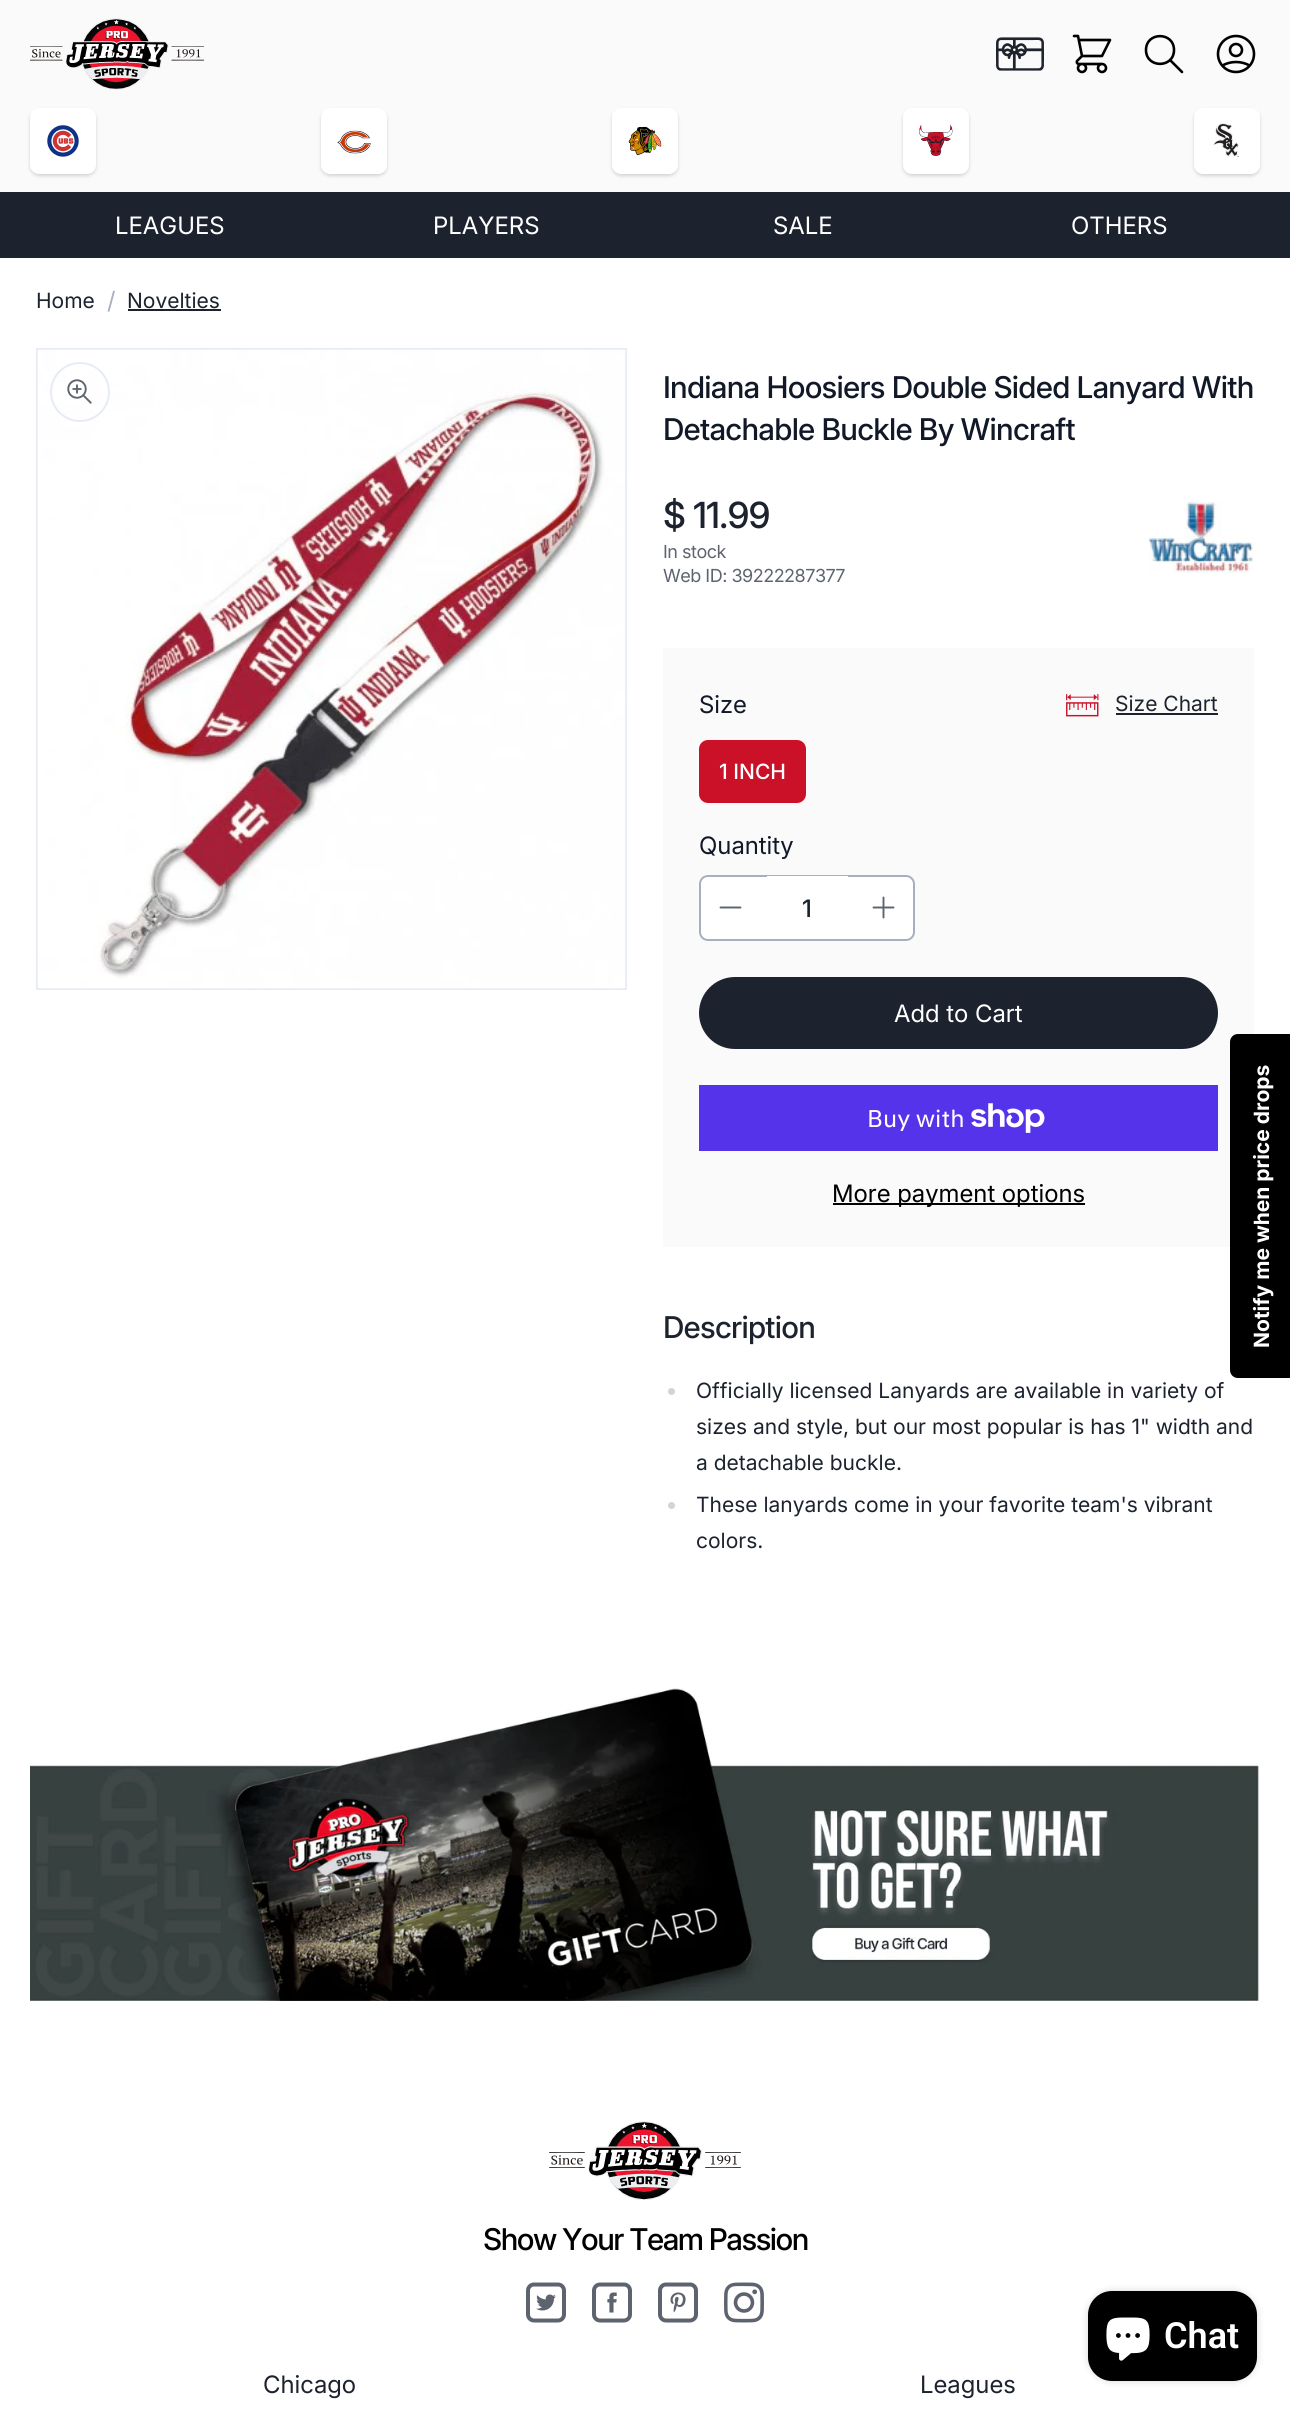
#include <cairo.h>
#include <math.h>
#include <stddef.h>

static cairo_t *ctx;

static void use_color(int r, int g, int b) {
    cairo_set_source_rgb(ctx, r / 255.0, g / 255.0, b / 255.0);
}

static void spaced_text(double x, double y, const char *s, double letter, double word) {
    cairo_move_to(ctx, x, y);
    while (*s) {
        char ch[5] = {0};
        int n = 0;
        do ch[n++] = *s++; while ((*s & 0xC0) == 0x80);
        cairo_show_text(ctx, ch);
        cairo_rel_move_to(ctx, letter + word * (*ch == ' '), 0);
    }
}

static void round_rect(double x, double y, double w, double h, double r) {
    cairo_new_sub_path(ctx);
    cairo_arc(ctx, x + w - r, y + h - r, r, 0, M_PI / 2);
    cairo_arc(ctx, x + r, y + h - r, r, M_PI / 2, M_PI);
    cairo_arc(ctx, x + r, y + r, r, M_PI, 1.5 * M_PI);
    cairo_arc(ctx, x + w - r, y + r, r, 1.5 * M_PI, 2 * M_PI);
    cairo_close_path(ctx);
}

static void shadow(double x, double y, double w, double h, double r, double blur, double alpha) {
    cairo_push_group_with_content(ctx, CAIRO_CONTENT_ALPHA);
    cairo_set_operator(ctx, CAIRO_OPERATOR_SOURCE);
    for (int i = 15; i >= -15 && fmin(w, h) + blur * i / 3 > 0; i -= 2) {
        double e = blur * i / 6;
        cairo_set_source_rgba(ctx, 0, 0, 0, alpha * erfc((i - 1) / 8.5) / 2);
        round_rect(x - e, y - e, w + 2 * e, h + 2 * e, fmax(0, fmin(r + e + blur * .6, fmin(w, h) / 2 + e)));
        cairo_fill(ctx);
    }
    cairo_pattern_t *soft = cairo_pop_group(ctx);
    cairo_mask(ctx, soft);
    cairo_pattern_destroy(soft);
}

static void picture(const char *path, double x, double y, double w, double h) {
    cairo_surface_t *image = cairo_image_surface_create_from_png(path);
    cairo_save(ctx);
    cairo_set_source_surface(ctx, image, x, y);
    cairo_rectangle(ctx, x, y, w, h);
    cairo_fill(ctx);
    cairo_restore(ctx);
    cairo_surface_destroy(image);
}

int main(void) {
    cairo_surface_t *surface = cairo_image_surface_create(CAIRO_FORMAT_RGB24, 1290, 2412);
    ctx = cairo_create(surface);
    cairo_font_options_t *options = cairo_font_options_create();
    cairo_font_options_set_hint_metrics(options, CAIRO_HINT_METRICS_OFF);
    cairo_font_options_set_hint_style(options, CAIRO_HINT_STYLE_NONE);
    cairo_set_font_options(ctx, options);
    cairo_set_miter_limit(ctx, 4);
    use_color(255, 255, 255);
    cairo_paint(ctx);
    use_color(250, 250, 250);
    cairo_rectangle(ctx, 0, 0, 1290, 192);
    cairo_fill(ctx);
    picture("img1.png", 30, 18, 174, 72);
    picture("img2.png", 996, 37, 48, 34);
    picture("img3.png", 1072, 34, 40, 40);
    cairo_new_path(ctx);
    cairo_move_to(ctx, 1182, 72);
    cairo_line_to(ctx, 1170, 60);
    cairo_move_to(ctx, 1174, 50);
    cairo_curve_to(ctx, 1174, 68.5, 1146, 68.5, 1146, 50);
    cairo_curve_to(ctx, 1146, 31.5, 1174, 31.5, 1174, 50);
    cairo_close_path(ctx);
    use_color(0, 0, 0);
    cairo_set_line_width(ctx, 2.6);
    cairo_set_line_cap(ctx, CAIRO_LINE_CAP_ROUND);
    cairo_set_line_join(ctx, CAIRO_LINE_JOIN_ROUND);
    cairo_stroke(ctx);
    picture("img4.png", 1216, 34, 40, 40);
    use_color(0, 0, 0);
    shadow(30, 110, 66, 66, 9, 1.5, 0.06);
    shadow(30, 110, 66, 66, 9, 2, 0.1);
    use_color(255, 255, 255);
    round_rect(30, 108, 66, 66, 9);
    cairo_fill(ctx);
    picture("img5.png", 47, 125, 32, 32);
    use_color(0, 0, 0);
    shadow(321, 110, 66, 66, 9, 1.5, 0.06);
    shadow(321, 110, 66, 66, 9, 2, 0.1);
    use_color(255, 255, 255);
    round_rect(321, 108, 66, 66, 9);
    cairo_fill(ctx);
    picture("img6.png", 337, 130, 34, 24);
    use_color(0, 0, 0);
    shadow(612, 110, 66, 66, 9, 1.5, 0.06);
    shadow(612, 110, 66, 66, 9, 2, 0.1);
    use_color(255, 255, 255);
    round_rect(612, 108, 66, 66, 9);
    cairo_fill(ctx);
    picture("img7.png", 628, 126, 34, 30);
    use_color(0, 0, 0);
    shadow(903, 110, 66, 66, 9, 1.5, 0.06);
    shadow(903, 110, 66, 66, 9, 2, 0.1);
    use_color(255, 255, 255);
    round_rect(903, 108, 66, 66, 9);
    cairo_fill(ctx);
    picture("img8.png", 919, 124, 34, 32);
    use_color(0, 0, 0);
    shadow(1194, 110, 66, 66, 9, 1.5, 0.06);
    shadow(1194, 110, 66, 66, 9, 2, 0.1);
    use_color(255, 255, 255);
    round_rect(1194, 108, 66, 66, 9);
    cairo_fill(ctx);
    picture("img9.png", 1213, 123, 26, 34);
    use_color(29, 35, 46);
    cairo_rectangle(ctx, 0, 192, 1290, 66);
    cairo_fill(ctx);
    cairo_select_font_face(ctx, "Inter", CAIRO_FONT_SLANT_NORMAL, CAIRO_FONT_WEIGHT_NORMAL);
    cairo_set_font_size(ctx, 24);
    use_color(255, 255, 255);
    cairo_move_to(ctx, 115, 234);
    cairo_show_text(ctx, "LEAGUES");
    cairo_move_to(ctx, 433, 234);
    cairo_show_text(ctx, "PLAYERS");
    cairo_move_to(ctx, 773, 234);
    cairo_show_text(ctx, "SALE");
    cairo_move_to(ctx, 1071, 234);
    cairo_show_text(ctx, "OTHERS");
    cairo_select_font_face(ctx, "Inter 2", CAIRO_FONT_SLANT_NORMAL, CAIRO_FONT_WEIGHT_NORMAL);
    cairo_set_font_size(ctx, 21);
    use_color(29, 35, 46);
    cairo_move_to(ctx, 36, 308);
    cairo_show_text(ctx, "Home");
    cairo_select_font_face(ctx, "Inter", CAIRO_FONT_SLANT_NORMAL, CAIRO_FONT_WEIGHT_NORMAL);
    cairo_set_font_size(ctx, 24);
    use_color(167, 176, 192);
    cairo_move_to(ctx, 107, 309);
    cairo_show_text(ctx, "/");
    cairo_select_font_face(ctx, "Inter 2", CAIRO_FONT_SLANT_NORMAL, CAIRO_FONT_WEIGHT_NORMAL);
    cairo_set_font_size(ctx, 21);
    use_color(29, 35, 46);
    cairo_move_to(ctx, 127, 308);
    cairo_show_text(ctx, "Novelties");
    cairo_rectangle(ctx, 128, 309, 93, 2);
    cairo_fill(ctx);
    cairo_rectangle(ctx, 37, 349, 589, 640);
    use_color(231, 236, 243);
    cairo_set_line_width(ctx, 2);
    cairo_set_line_cap(ctx, CAIRO_LINE_CAP_BUTT);
    cairo_set_line_join(ctx, CAIRO_LINE_JOIN_MITER);
    cairo_stroke(ctx);
    picture("img10.png", 37, 349, 589, 640);
    cairo_arc(ctx, 80, 392, 29, 0, 2 * M_PI);
    cairo_stroke(ctx);
    picture("img11.png", 67, 379, 25, 25);
    cairo_select_font_face(ctx, "Inter Medium", CAIRO_FONT_SLANT_NORMAL, CAIRO_FONT_WEIGHT_NORMAL);
    cairo_set_font_size(ctx, 30);
    use_color(17, 24, 39);
    spaced_text(663, 398, "Indiana Hoosiers Double Sided Lanyard With", -0.75, 0);
    spaced_text(663, 440, "Detachable Buckle By Wincraft", -0.75, 0);
    cairo_select_font_face(ctx, "Inter 2 Medium", CAIRO_FONT_SLANT_NORMAL, CAIRO_FONT_WEIGHT_NORMAL);
    cairo_set_font_size(ctx, 36);
    use_color(29, 35, 46);
    spaced_text(663, 528, "$ 11.99", -1, 0);
    cairo_select_font_face(ctx, "Inter 2", CAIRO_FONT_SLANT_NORMAL, CAIRO_FONT_WEIGHT_NORMAL);
    cairo_set_font_size(ctx, 18);
    use_color(93, 100, 112);
    spaced_text(663, 558, "In stock", -0.5, 0);
    spaced_text(663, 582, "Web ID: 39222287377", -0.5, 0);
    picture("img12.png", 1149, 501, 105, 72);
    use_color(250, 250, 250);
    cairo_rectangle(ctx, 663, 648, 591, 599);
    cairo_fill(ctx);
    cairo_select_font_face(ctx, "Inter", CAIRO_FONT_SLANT_NORMAL, CAIRO_FONT_WEIGHT_NORMAL);
    cairo_set_font_size(ctx, 24);
    use_color(17, 24, 39);
    cairo_move_to(ctx, 699, 713);
    cairo_show_text(ctx, "Size");
    picture("img13.png", 1066, 694, 33, 23);
    cairo_select_font_face(ctx, "Inter 2", CAIRO_FONT_SLANT_NORMAL, CAIRO_FONT_WEIGHT_NORMAL);
    cairo_set_font_size(ctx, 21);
    use_color(29, 35, 46);
    cairo_move_to(ctx, 1115, 711);
    cairo_show_text(ctx, "Size Chart");
    cairo_rectangle(ctx, 1116, 713, 102, 2);
    cairo_fill(ctx);
    use_color(202, 17, 39);
    round_rect(700, 741, 105, 61, 8);
    cairo_fill_preserve(ctx);
    cairo_stroke(ctx);
    cairo_select_font_face(ctx, "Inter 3 Medium", CAIRO_FONT_SLANT_NORMAL, CAIRO_FONT_WEIGHT_NORMAL);
    use_color(255, 255, 255);
    cairo_move_to(ctx, 719, 779);
    cairo_show_text(ctx, "1 INCH");
    cairo_select_font_face(ctx, "Inter", CAIRO_FONT_SLANT_NORMAL, CAIRO_FONT_WEIGHT_NORMAL);
    cairo_set_font_size(ctx, 24);
    use_color(17, 24, 39);
    cairo_move_to(ctx, 699, 854);
    cairo_show_text(ctx, "Quantity");
    use_color(255, 255, 255);
    round_rect(700, 876, 214, 64, 8);
    cairo_fill_preserve(ctx);
    use_color(167, 176, 192);
    cairo_stroke(ctx);
    cairo_new_path(ctx);
    cairo_move_to(ctx, 740.5, 907.5);
    cairo_line_to(ctx, 720.5, 907.5);
    use_color(93, 100, 112);
    cairo_set_line_width(ctx, 1.9);
    cairo_set_line_cap(ctx, CAIRO_LINE_CAP_ROUND);
    cairo_set_line_join(ctx, CAIRO_LINE_JOIN_ROUND);
    cairo_stroke(ctx);
    use_color(255, 255, 255);
    cairo_rectangle(ctx, 767, 876, 81, 1);
    cairo_fill(ctx);
    cairo_select_font_face(ctx, "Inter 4 Medium", CAIRO_FONT_SLANT_NORMAL, CAIRO_FONT_WEIGHT_NORMAL);
    use_color(29, 35, 46);
    cairo_move_to(ctx, 802, 917);
    cairo_show_text(ctx, "1");
    cairo_new_path(ctx);
    cairo_move_to(ctx, 883.5, 897.5);
    cairo_line_to(ctx, 883.5, 917.5);
    cairo_move_to(ctx, 893.5, 907.5);
    cairo_line_to(ctx, 873.5, 907.5);
    use_color(93, 100, 112);
    cairo_stroke(ctx);
    use_color(29, 35, 46);
    round_rect(699, 977, 519, 72, 36);
    cairo_fill(ctx);
    cairo_select_font_face(ctx, "Inter", CAIRO_FONT_SLANT_NORMAL, CAIRO_FONT_WEIGHT_NORMAL);
    use_color(255, 255, 255);
    cairo_move_to(ctx, 894, 1022);
    cairo_show_text(ctx, "Add to Cart");
    use_color(84, 51, 235);
    cairo_rectangle(ctx, 699, 1085, 519, 66);
    cairo_fill(ctx);
    cairo_select_font_face(ctx, "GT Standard", CAIRO_FONT_SLANT_NORMAL, CAIRO_FONT_WEIGHT_NORMAL);
    use_color(255, 255, 255);
    cairo_move_to(ctx, 867, 1127);
    cairo_show_text(ctx, "Buy with");
    picture("img14.png", 971, 1103, 74, 30);
    use_color(0, 0, 0);
    cairo_rectangle(ctx, 833, 1203, 252, 2);
    cairo_fill(ctx);
    cairo_select_font_face(ctx, "Inter", CAIRO_FONT_SLANT_NORMAL, CAIRO_FONT_WEIGHT_NORMAL);
    cairo_move_to(ctx, 832, 1202);
    cairo_show_text(ctx, "More payment options");
    cairo_select_font_face(ctx, "Inter Medium", CAIRO_FONT_SLANT_NORMAL, CAIRO_FONT_WEIGHT_NORMAL);
    cairo_set_font_size(ctx, 30);
    use_color(29, 35, 46);
    spaced_text(663, 1338, "Description", -0.75, 0);
    use_color(209, 213, 219);
    cairo_new_path(ctx);
    cairo_arc(ctx, 671.5, 1391.5, 3.5, 0, 2 * M_PI);
    cairo_fill(ctx);
    cairo_select_font_face(ctx, "Inter 2", CAIRO_FONT_SLANT_NORMAL, CAIRO_FONT_WEIGHT_NORMAL);
    cairo_set_font_size(ctx, 21);
    use_color(29, 35, 46);
    cairo_move_to(ctx, 696, 1398);
    cairo_show_text(ctx, "Officially licensed Lanyards are available in variety of");
    cairo_move_to(ctx, 696, 1434);
    cairo_show_text(ctx, "sizes and style, but our most popular is has 1\" width and");
    cairo_move_to(ctx, 696, 1470);
    cairo_show_text(ctx, "a detachable buckle.");
    use_color(209, 213, 219);
    cairo_new_path(ctx);
    cairo_arc(ctx, 671.5, 1505.5, 3.5, 0, 2 * M_PI);
    cairo_fill(ctx);
    use_color(29, 35, 46);
    cairo_move_to(ctx, 696, 1512);
    cairo_show_text(ctx, "These lanyards come in your favorite team's vibrant");
    cairo_move_to(ctx, 696, 1548);
    cairo_show_text(ctx, "colors.");
    picture("img15.png", 30, 1688, 1230, 313);
    use_color(0, 0, 0);
    cairo_new_path(ctx);
    cairo_move_to(ctx, 1230, 1370);
    cairo_line_to(ctx, 1230, 1042);
    cairo_curve_to(ctx, 1230, 1038, 1233, 1034, 1238, 1034);
    cairo_line_to(ctx, 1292, 1034);
    cairo_line_to(ctx, 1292, 1378);
    cairo_line_to(ctx, 1238, 1378);
    cairo_curve_to(ctx, 1233, 1378, 1230, 1374, 1230, 1370);
    cairo_close_path(ctx);
    cairo_fill(ctx);
    cairo_select_font_face(ctx, "Inter", CAIRO_FONT_SLANT_NORMAL, CAIRO_FONT_WEIGHT_BOLD);
    use_color(255, 255, 255);
    cairo_save(ctx);
    cairo_translate(ctx, 1269, 1348);
    cairo_rotate(ctx, -90 * M_PI / 180);
    cairo_move_to(ctx, 0, 0);
    cairo_show_text(ctx, "Notify me when price drops");
    cairo_restore(ctx);
    picture("img16.png", 549, 2121, 192, 79);
    cairo_select_font_face(ctx, "Inter Medium", CAIRO_FONT_SLANT_NORMAL, CAIRO_FONT_WEIGHT_NORMAL);
    cairo_set_font_size(ctx, 30);
    use_color(0, 0, 0);
    spaced_text(483, 2250, "Show Your Team Passion", -1.5, 0);
    picture("img17.png", 526, 2282, 40, 41);
    picture("img18.png", 592, 2282, 40, 41);
    picture("img19.png", 658, 2282, 40, 41);
    picture("img20.png", 724, 2282, 40, 41);
    cairo_select_font_face(ctx, "Inter", CAIRO_FONT_SLANT_NORMAL, CAIRO_FONT_WEIGHT_NORMAL);
    cairo_set_font_size(ctx, 24);
    use_color(29, 35, 46);
    cairo_move_to(ctx, 263, 2393);
    cairo_show_text(ctx, "Chicago");
    cairo_move_to(ctx, 920, 2393);
    cairo_show_text(ctx, "Leagues");
    use_color(0, 0, 0);
    shadow(1088, 2291, 169, 90, 24, 4, 0.15);
    use_color(0, 0, 0);
    round_rect(1088, 2291, 169, 90, 24);
    cairo_fill(ctx);
    picture("img21.png", 1106, 2317, 44, 44);
    cairo_select_font_face(ctx, "Roboto SemiBold", CAIRO_FONT_SLANT_NORMAL, CAIRO_FONT_WEIGHT_NORMAL);
    cairo_set_font_size(ctx, 36);
    use_color(255, 255, 255);
    cairo_move_to(ctx, 1164, 2348);
    cairo_show_text(ctx, "Chat");
    cairo_surface_write_to_png(surface, "result.png");
    cairo_font_options_destroy(options);
    cairo_destroy(ctx);
    cairo_surface_destroy(surface);
    return 0;
}
